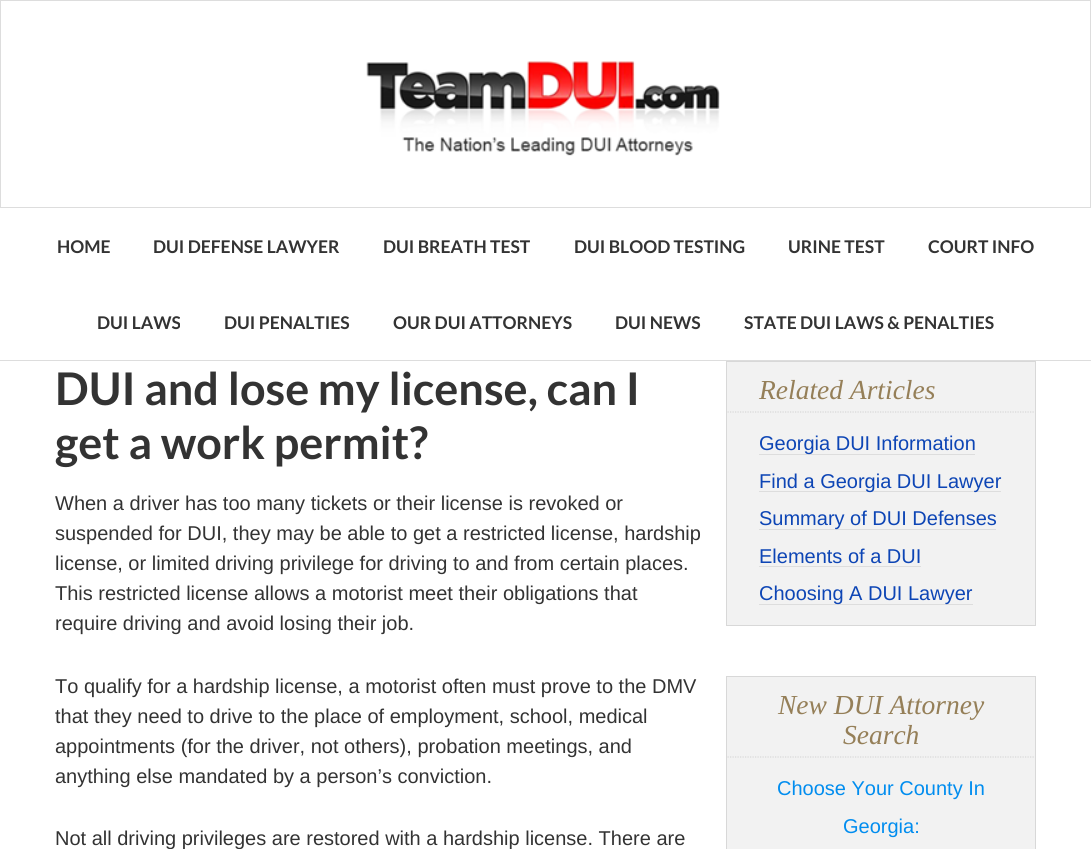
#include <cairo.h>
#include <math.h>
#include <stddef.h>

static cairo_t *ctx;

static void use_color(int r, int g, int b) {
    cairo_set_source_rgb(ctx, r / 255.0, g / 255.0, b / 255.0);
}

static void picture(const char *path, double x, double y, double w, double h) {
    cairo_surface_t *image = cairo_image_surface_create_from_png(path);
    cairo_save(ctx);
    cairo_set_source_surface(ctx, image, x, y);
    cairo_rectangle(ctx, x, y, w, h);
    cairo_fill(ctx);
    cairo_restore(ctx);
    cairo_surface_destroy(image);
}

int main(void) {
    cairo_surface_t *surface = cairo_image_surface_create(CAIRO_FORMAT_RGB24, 1091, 849);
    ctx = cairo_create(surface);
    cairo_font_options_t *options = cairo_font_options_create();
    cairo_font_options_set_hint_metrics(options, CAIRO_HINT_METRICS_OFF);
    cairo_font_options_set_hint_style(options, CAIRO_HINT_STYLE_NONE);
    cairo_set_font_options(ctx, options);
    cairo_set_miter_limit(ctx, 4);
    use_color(255, 255, 255);
    cairo_paint(ctx);
    cairo_rectangle(ctx, 0.5, 0.5, 1090, 207);
    use_color(221, 221, 221);
    cairo_set_line_width(ctx, 1);
    cairo_stroke(ctx);
    picture("img1.png", 366, 61, 354, 95);
    cairo_rectangle(ctx, 0, 360, 1091, 1);
    cairo_fill(ctx);
    cairo_select_font_face(ctx, "Lato", CAIRO_FONT_SLANT_NORMAL, CAIRO_FONT_WEIGHT_BOLD);
    cairo_set_font_size(ctx, 17.5);
    use_color(51, 51, 51);
    cairo_move_to(ctx, 57, 253);
    cairo_show_text(ctx, "HOME");
    cairo_move_to(ctx, 153, 253);
    cairo_show_text(ctx, "DUI DEFENSE LAWYER");
    cairo_move_to(ctx, 383, 253);
    cairo_show_text(ctx, "DUI BREATH TEST");
    cairo_move_to(ctx, 574, 253);
    cairo_show_text(ctx, "DUI BLOOD TESTING");
    cairo_move_to(ctx, 788, 253);
    cairo_show_text(ctx, "URINE TEST");
    cairo_move_to(ctx, 928, 253);
    cairo_show_text(ctx, "COURT INFO");
    cairo_move_to(ctx, 97, 329);
    cairo_show_text(ctx, "DUI LAWS");
    cairo_move_to(ctx, 224, 329);
    cairo_show_text(ctx, "DUI PENALTIES");
    cairo_move_to(ctx, 393, 329);
    cairo_show_text(ctx, "OUR DUI ATTORNEYS");
    cairo_move_to(ctx, 615, 329);
    cairo_show_text(ctx, "DUI NEWS");
    cairo_move_to(ctx, 744, 329);
    cairo_show_text(ctx, "STATE DUI LAWS & PENALTIES");
    cairo_set_font_size(ctx, 45);
    cairo_move_to(ctx, 55, 405);
    cairo_show_text(ctx, "DUI and lose my license, can I");
    cairo_move_to(ctx, 55, 459);
    cairo_show_text(ctx, "get a work permit?");
    cairo_select_font_face(ctx, "Liberation Sans", CAIRO_FONT_SLANT_NORMAL, CAIRO_FONT_WEIGHT_NORMAL);
    cairo_set_font_size(ctx, 20);
    cairo_move_to(ctx, 55, 510);
    cairo_show_text(ctx, "When a driver has too many tickets or their license is revoked or");
    cairo_move_to(ctx, 55, 540);
    cairo_show_text(ctx, "suspended for DUI, they may be able to get a restricted license, hardship");
    cairo_move_to(ctx, 55, 570);
    cairo_show_text(ctx, "license, or limited driving privilege for driving to and from certain places.");
    cairo_move_to(ctx, 55, 600);
    cairo_show_text(ctx, "This restricted license allows a motorist meet their obligations that");
    cairo_move_to(ctx, 55, 630);
    cairo_show_text(ctx, "require driving and avoid losing their job.");
    cairo_move_to(ctx, 55, 693);
    cairo_show_text(ctx, "To qualify for a hardship license, a motorist often must prove to the DMV");
    cairo_move_to(ctx, 55, 723);
    cairo_show_text(ctx, "that they need to drive to the place of employment, school, medical");
    cairo_move_to(ctx, 55, 753);
    cairo_show_text(ctx, "appointments (for the driver, not others), probation meetings, and");
    cairo_move_to(ctx, 55, 783);
    cairo_show_text(ctx, "anything else mandated by a person’s conviction.");
    cairo_move_to(ctx, 55, 845);
    cairo_show_text(ctx, "Not all driving privileges are restored with a hardship license. There are");
    use_color(242, 242, 242);
    cairo_rectangle(ctx, 726.5, 361.5, 309, 264);
    cairo_fill_preserve(ctx);
    use_color(216, 216, 216);
    cairo_stroke(ctx);
    cairo_new_path(ctx);
    cairo_move_to(ctx, 727.5, 412);
    cairo_line_to(ctx, 1035, 412);
    cairo_set_line_width(ctx, 1.2);
    cairo_set_dash(ctx, (double[]){1.25, 1.25}, 2, 0);
    cairo_stroke(ctx);
    cairo_select_font_face(ctx, "Liberation Serif", CAIRO_FONT_SLANT_ITALIC, CAIRO_FONT_WEIGHT_NORMAL);
    cairo_set_font_size(ctx, 27.5);
    use_color(149, 127, 88);
    cairo_move_to(ctx, 759, 399);
    cairo_show_text(ctx, "Related Articles");
    use_color(221, 221, 221);
    cairo_rectangle(ctx, 759, 454, 216, 1);
    cairo_fill(ctx);
    cairo_select_font_face(ctx, "Liberation Sans", CAIRO_FONT_SLANT_NORMAL, CAIRO_FONT_WEIGHT_NORMAL);
    cairo_set_font_size(ctx, 20);
    use_color(13, 69, 181);
    cairo_move_to(ctx, 759, 450);
    cairo_show_text(ctx, "Georgia DUI Information");
    use_color(221, 221, 221);
    cairo_rectangle(ctx, 759, 491, 242, 1);
    cairo_fill(ctx);
    use_color(13, 69, 181);
    cairo_move_to(ctx, 759, 488);
    cairo_show_text(ctx, "Find a Georgia DUI Lawyer");
    use_color(221, 221, 221);
    cairo_rectangle(ctx, 759, 529, 237, 1);
    cairo_fill(ctx);
    use_color(13, 69, 181);
    cairo_move_to(ctx, 759, 525);
    cairo_show_text(ctx, "Summary of DUI Defenses");
    cairo_move_to(ctx, 759, 563);
    cairo_show_text(ctx, "Elements of a DUI");
    use_color(221, 221, 221);
    cairo_rectangle(ctx, 759, 566, 162, 1);
    cairo_fill(ctx);
    cairo_rectangle(ctx, 759, 604, 214, 1);
    cairo_fill(ctx);
    use_color(13, 69, 181);
    cairo_move_to(ctx, 759, 600);
    cairo_show_text(ctx, "Choosing A DUI Lawyer");
    use_color(242, 242, 242);
    cairo_rectangle(ctx, 726.5, 676.5, 309, 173);
    cairo_fill_preserve(ctx);
    use_color(216, 216, 216);
    cairo_set_line_width(ctx, 1);
    cairo_set_dash(ctx, NULL, 0, 0);
    cairo_stroke(ctx);
    cairo_new_path(ctx);
    cairo_move_to(ctx, 727.5, 757);
    cairo_line_to(ctx, 1035, 757);
    cairo_set_line_width(ctx, 1.2);
    cairo_set_dash(ctx, (double[]){1.25, 1.25}, 2, 0);
    cairo_stroke(ctx);
    cairo_select_font_face(ctx, "Liberation Serif", CAIRO_FONT_SLANT_ITALIC, CAIRO_FONT_WEIGHT_NORMAL);
    cairo_set_font_size(ctx, 27.5);
    use_color(149, 127, 88);
    cairo_move_to(ctx, 778, 714);
    cairo_show_text(ctx, "New DUI Attorney");
    cairo_move_to(ctx, 843, 744);
    cairo_show_text(ctx, "Search");
    cairo_select_font_face(ctx, "Liberation Sans", CAIRO_FONT_SLANT_NORMAL, CAIRO_FONT_WEIGHT_NORMAL);
    cairo_set_font_size(ctx, 20);
    use_color(1, 141, 239);
    cairo_move_to(ctx, 777, 795);
    cairo_show_text(ctx, "Choose Your County In");
    cairo_move_to(ctx, 843, 833);
    cairo_show_text(ctx, "Georgia:");
    cairo_surface_write_to_png(surface, "result.png");
    cairo_font_options_destroy(options);
    cairo_destroy(ctx);
    cairo_surface_destroy(surface);
    return 0;
}
